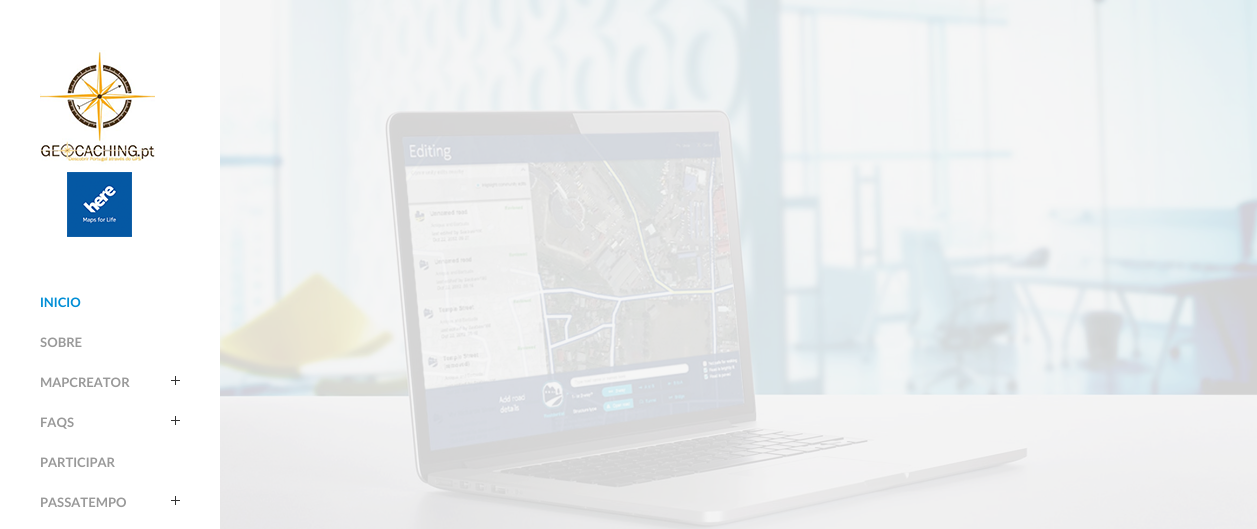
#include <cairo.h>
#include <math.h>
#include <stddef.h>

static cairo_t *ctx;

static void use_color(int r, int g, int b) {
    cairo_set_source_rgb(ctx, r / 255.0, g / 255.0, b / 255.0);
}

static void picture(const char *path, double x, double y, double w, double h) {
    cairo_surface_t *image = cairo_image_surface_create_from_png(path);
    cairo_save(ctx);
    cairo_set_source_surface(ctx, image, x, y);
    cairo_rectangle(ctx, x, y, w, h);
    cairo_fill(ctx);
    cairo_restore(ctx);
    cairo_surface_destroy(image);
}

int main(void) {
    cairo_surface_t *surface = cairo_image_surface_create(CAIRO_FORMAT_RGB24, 1257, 529);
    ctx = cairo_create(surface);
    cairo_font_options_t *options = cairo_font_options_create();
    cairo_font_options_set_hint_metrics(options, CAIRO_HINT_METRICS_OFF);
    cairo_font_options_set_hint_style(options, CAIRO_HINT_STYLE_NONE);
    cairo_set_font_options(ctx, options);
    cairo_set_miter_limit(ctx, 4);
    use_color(255, 255, 255);
    cairo_paint(ctx);
    picture("img1.png", 40, 50, 115, 187);
    cairo_select_font_face(ctx, "Lato", CAIRO_FONT_SLANT_NORMAL, CAIRO_FONT_WEIGHT_BOLD);
    cairo_set_font_size(ctx, 13);
    use_color(0, 142, 214);
    cairo_move_to(ctx, 40, 307);
    cairo_show_text(ctx, "INICIO");
    use_color(153, 153, 153);
    cairo_move_to(ctx, 40, 347);
    cairo_show_text(ctx, "SOBRE");
    cairo_move_to(ctx, 40, 387);
    cairo_show_text(ctx, "MAPCREATOR");
    picture("img2.png", 171, 376, 9, 9);
    cairo_move_to(ctx, 40, 427);
    cairo_show_text(ctx, "FAQS");
    picture("img2.png", 171, 416, 9, 9);
    cairo_move_to(ctx, 40, 467);
    cairo_show_text(ctx, "PARTICIPAR");
    cairo_move_to(ctx, 40, 507);
    cairo_show_text(ctx, "PASSATEMPO");
    picture("img2.png", 171, 496, 9, 9);
    use_color(245, 245, 245);
    cairo_rectangle(ctx, 220, 0, 1037, 529);
    cairo_fill(ctx);
    picture("img3.png", 220, 0, 1037, 529);
    cairo_surface_write_to_png(surface, "result.png");
    cairo_font_options_destroy(options);
    cairo_destroy(ctx);
    cairo_surface_destroy(surface);
    return 0;
}
